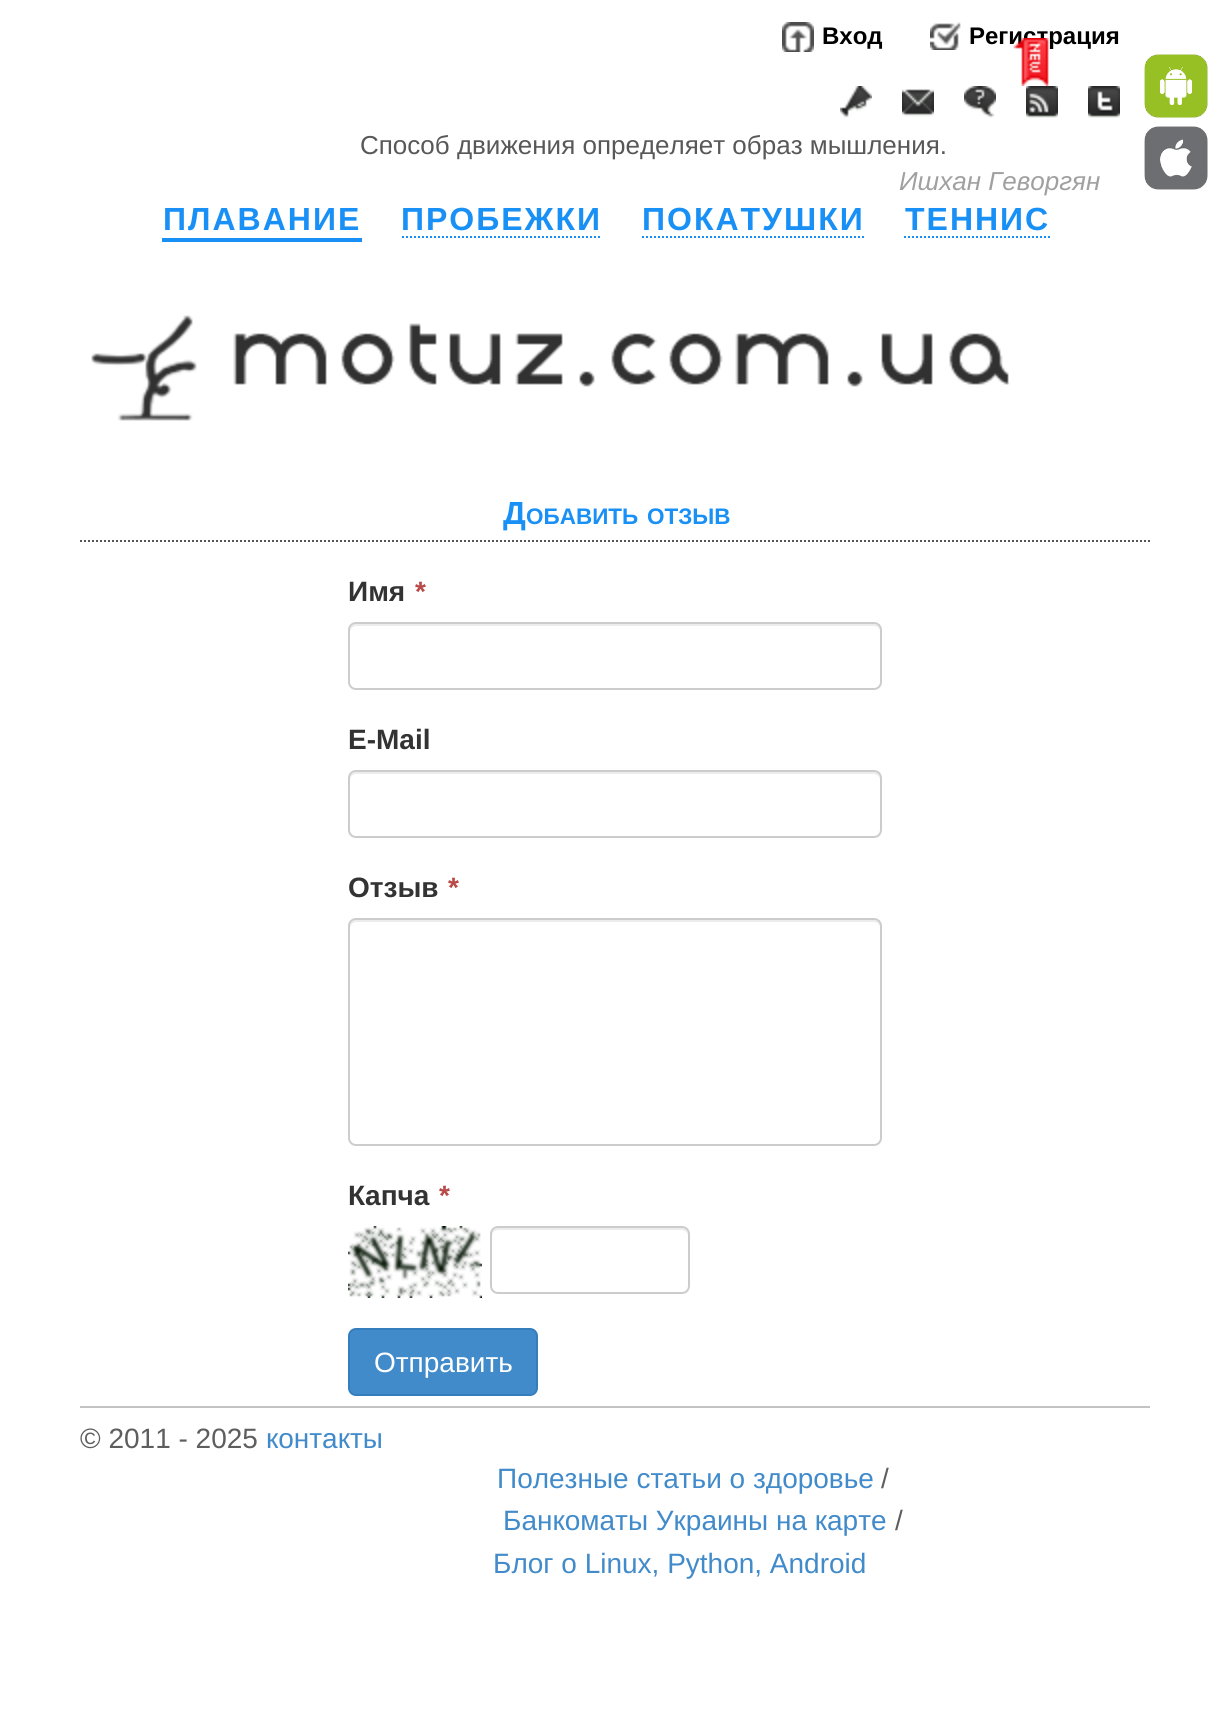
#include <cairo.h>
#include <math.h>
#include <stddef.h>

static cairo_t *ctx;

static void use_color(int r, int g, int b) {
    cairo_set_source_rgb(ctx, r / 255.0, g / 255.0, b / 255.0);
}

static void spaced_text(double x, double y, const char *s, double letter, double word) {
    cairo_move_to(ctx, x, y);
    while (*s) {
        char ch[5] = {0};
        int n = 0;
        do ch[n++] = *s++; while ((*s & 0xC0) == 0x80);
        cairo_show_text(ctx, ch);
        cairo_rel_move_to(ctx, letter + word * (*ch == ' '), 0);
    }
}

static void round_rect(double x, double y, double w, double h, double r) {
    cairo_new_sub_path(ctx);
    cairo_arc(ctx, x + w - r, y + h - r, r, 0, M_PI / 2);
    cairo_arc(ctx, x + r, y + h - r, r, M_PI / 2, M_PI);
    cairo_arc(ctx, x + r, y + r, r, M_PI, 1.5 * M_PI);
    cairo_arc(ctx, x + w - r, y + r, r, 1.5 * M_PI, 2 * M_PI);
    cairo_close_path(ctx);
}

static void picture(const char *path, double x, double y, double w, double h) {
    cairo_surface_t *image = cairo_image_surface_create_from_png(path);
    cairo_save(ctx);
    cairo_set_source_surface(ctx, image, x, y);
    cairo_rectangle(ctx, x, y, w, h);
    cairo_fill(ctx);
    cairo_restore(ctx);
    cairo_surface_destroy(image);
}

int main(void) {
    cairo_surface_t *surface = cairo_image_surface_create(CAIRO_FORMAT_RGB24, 1229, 1710);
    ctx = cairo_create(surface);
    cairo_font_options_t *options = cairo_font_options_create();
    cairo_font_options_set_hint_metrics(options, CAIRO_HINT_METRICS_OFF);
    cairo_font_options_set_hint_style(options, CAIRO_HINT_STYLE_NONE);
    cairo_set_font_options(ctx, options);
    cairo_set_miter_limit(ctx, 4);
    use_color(255, 255, 255);
    cairo_paint(ctx);
    picture("img1.png", 782, 22, 32, 30);
    cairo_select_font_face(ctx, "Liberation Sans", CAIRO_FONT_SLANT_NORMAL, CAIRO_FONT_WEIGHT_BOLD);
    cairo_set_font_size(ctx, 24);
    use_color(0, 0, 0);
    cairo_move_to(ctx, 822, 44);
    cairo_show_text(ctx, "Вход");
    picture("img2.png", 930, 22, 31, 28);
    cairo_move_to(ctx, 969, 44);
    cairo_show_text(ctx, "Регистрация");
    picture("img3.png", 1013, 38, 36, 48);
    picture("img4.png", 1144, 54, 64, 64);
    picture("img5.png", 1144, 126, 64, 64);
    picture("img6.png", 840, 86, 32, 32);
    picture("img7.png", 902, 89, 32, 28);
    picture("img8.png", 964, 86, 32, 32);
    picture("img9.png", 1026, 86, 32, 32);
    picture("img10.png", 1088, 86, 32, 32);
    cairo_select_font_face(ctx, "Liberation Sans", CAIRO_FONT_SLANT_NORMAL, CAIRO_FONT_WEIGHT_NORMAL);
    cairo_set_font_size(ctx, 26);
    use_color(88, 88, 88);
    cairo_move_to(ctx, 360, 154);
    cairo_show_text(ctx, "Способ движения определяет образ мышления.");
    cairo_select_font_face(ctx, "Liberation Sans", CAIRO_FONT_SLANT_ITALIC, CAIRO_FONT_WEIGHT_NORMAL);
    use_color(160, 160, 160);
    cairo_move_to(ctx, 899, 190);
    cairo_show_text(ctx, "Ишхан Геворгян");
    cairo_select_font_face(ctx, "Liberation Sans", CAIRO_FONT_SLANT_NORMAL, CAIRO_FONT_WEIGHT_BOLD);
    cairo_set_font_size(ctx, 32);
    use_color(25, 144, 245);
    spaced_text(163, 230, "ПЛАВАНИЕ", 2, 0);
    cairo_rectangle(ctx, 162, 238, 200, 4);
    cairo_fill(ctx);
    spaced_text(401, 230, "ПРОБЕЖКИ", 2, 0);
    cairo_new_path(ctx);
    cairo_move_to(ctx, 402, 237);
    cairo_line_to(ctx, 602, 237);
    cairo_set_dash(ctx, (double[]){2, 2}, 2, 0);
    cairo_stroke(ctx);
    spaced_text(642, 230, "ПОКАТУШКИ", 2, 0);
    cairo_new_path(ctx);
    cairo_move_to(ctx, 642, 237);
    cairo_line_to(ctx, 864, 237);
    cairo_stroke(ctx);
    spaced_text(905, 230, "ТЕННИС", 2, 0);
    cairo_new_path(ctx);
    cairo_move_to(ctx, 904, 237);
    cairo_line_to(ctx, 1050, 237);
    cairo_stroke(ctx);
    picture("img11.png", 91, 315, 919, 106);
    cairo_new_path(ctx);
    cairo_move_to(ctx, 80, 541);
    cairo_line_to(ctx, 1150, 541);
    use_color(85, 85, 85);
    cairo_stroke(ctx);
    use_color(25, 144, 245);
    cairo_move_to(ctx, 503, 524);
    cairo_show_text(ctx, "Д");
    cairo_set_font_size(ctx, 22.5);
    cairo_move_to(ctx, 526, 524);
    cairo_show_text(ctx, "ОБАВИТЬ");
    cairo_move_to(ctx, 647, 524);
    cairo_show_text(ctx, "ОТЗЫВ");
    cairo_set_font_size(ctx, 28);
    use_color(51, 51, 51);
    cairo_move_to(ctx, 348, 601);
    cairo_show_text(ctx, "Имя");
    use_color(185, 74, 72);
    cairo_move_to(ctx, 415, 601);
    cairo_show_text(ctx, "*");
    use_color(236, 236, 236);
    cairo_new_path(ctx);
    cairo_move_to(ctx, 356, 626);
    cairo_line_to(ctx, 874, 626);
    cairo_curve_to(ctx, 877, 626, 880, 629, 880, 632);
    cairo_line_to(ctx, 880, 630);
    cairo_curve_to(ctx, 880, 627, 877, 624, 874, 624);
    cairo_line_to(ctx, 356, 624);
    cairo_curve_to(ctx, 353, 624, 350, 627, 350, 630);
    cairo_line_to(ctx, 350, 632);
    cairo_curve_to(ctx, 350, 629, 353, 626, 356, 626);
    cairo_close_path(ctx);
    cairo_fill(ctx);
    round_rect(349, 623, 532, 66, 7);
    use_color(204, 204, 204);
    cairo_set_dash(ctx, NULL, 0, 0);
    cairo_stroke(ctx);
    use_color(51, 51, 51);
    cairo_move_to(ctx, 348, 749);
    cairo_show_text(ctx, "E-Mail");
    use_color(236, 236, 236);
    cairo_new_path(ctx);
    cairo_move_to(ctx, 356, 774);
    cairo_line_to(ctx, 874, 774);
    cairo_curve_to(ctx, 877, 774, 880, 777, 880, 780);
    cairo_line_to(ctx, 880, 778);
    cairo_curve_to(ctx, 880, 775, 877, 772, 874, 772);
    cairo_line_to(ctx, 356, 772);
    cairo_curve_to(ctx, 353, 772, 350, 775, 350, 778);
    cairo_line_to(ctx, 350, 780);
    cairo_curve_to(ctx, 350, 777, 353, 774, 356, 774);
    cairo_close_path(ctx);
    cairo_fill(ctx);
    round_rect(349, 771, 532, 66, 7);
    use_color(204, 204, 204);
    cairo_stroke(ctx);
    use_color(51, 51, 51);
    cairo_move_to(ctx, 348, 897);
    cairo_show_text(ctx, "Отзыв");
    use_color(185, 74, 72);
    cairo_move_to(ctx, 448, 897);
    cairo_show_text(ctx, "*");
    use_color(236, 236, 236);
    cairo_new_path(ctx);
    cairo_move_to(ctx, 356, 922);
    cairo_line_to(ctx, 874, 922);
    cairo_curve_to(ctx, 877, 922, 880, 925, 880, 928);
    cairo_line_to(ctx, 880, 926);
    cairo_curve_to(ctx, 880, 923, 877, 920, 874, 920);
    cairo_line_to(ctx, 356, 920);
    cairo_curve_to(ctx, 353, 920, 350, 923, 350, 926);
    cairo_line_to(ctx, 350, 928);
    cairo_curve_to(ctx, 350, 925, 353, 922, 356, 922);
    cairo_close_path(ctx);
    cairo_fill(ctx);
    round_rect(349, 919, 532, 226, 7);
    use_color(204, 204, 204);
    cairo_stroke(ctx);
    use_color(51, 51, 51);
    cairo_move_to(ctx, 348, 1205);
    cairo_show_text(ctx, "Капча");
    use_color(185, 74, 72);
    cairo_move_to(ctx, 439, 1205);
    cairo_show_text(ctx, "*");
    picture("img12.png", 348, 1226, 134, 72);
    use_color(236, 236, 236);
    cairo_new_path(ctx);
    cairo_move_to(ctx, 498, 1230);
    cairo_line_to(ctx, 682, 1230);
    cairo_curve_to(ctx, 685, 1230, 688, 1233, 688, 1236);
    cairo_line_to(ctx, 688, 1234);
    cairo_curve_to(ctx, 688, 1231, 685, 1228, 682, 1228);
    cairo_line_to(ctx, 498, 1228);
    cairo_curve_to(ctx, 495, 1228, 492, 1231, 492, 1234);
    cairo_line_to(ctx, 492, 1236);
    cairo_curve_to(ctx, 492, 1233, 495, 1230, 498, 1230);
    cairo_close_path(ctx);
    cairo_fill(ctx);
    round_rect(491, 1227, 198, 66, 7);
    use_color(204, 204, 204);
    cairo_stroke(ctx);
    use_color(66, 139, 202);
    round_rect(349, 1329, 188, 66, 7);
    cairo_fill_preserve(ctx);
    use_color(53, 126, 189);
    cairo_stroke(ctx);
    cairo_select_font_face(ctx, "Liberation Sans", CAIRO_FONT_SLANT_NORMAL, CAIRO_FONT_WEIGHT_NORMAL);
    use_color(255, 255, 255);
    cairo_move_to(ctx, 374, 1372);
    cairo_show_text(ctx, "Отправить");
    use_color(195, 195, 195);
    cairo_rectangle(ctx, 80, 1406, 1070, 2);
    cairo_fill(ctx);
    use_color(94, 94, 94);
    cairo_move_to(ctx, 80, 1448);
    cairo_show_text(ctx, "© 2011 - 2025");
    use_color(66, 139, 202);
    cairo_move_to(ctx, 266, 1448);
    cairo_show_text(ctx, "контакты");
    cairo_move_to(ctx, 497, 1488);
    cairo_show_text(ctx, "Полезные статьи о здоровье");
    use_color(94, 94, 94);
    cairo_move_to(ctx, 881, 1488);
    cairo_show_text(ctx, "/");
    use_color(66, 139, 202);
    cairo_move_to(ctx, 503, 1530);
    cairo_show_text(ctx, "Банкоматы Украины на карте");
    use_color(94, 94, 94);
    cairo_move_to(ctx, 895, 1530);
    cairo_show_text(ctx, "/");
    use_color(66, 139, 202);
    cairo_move_to(ctx, 493, 1573);
    cairo_show_text(ctx, "Блог о Linux, Python, Android");
    cairo_surface_write_to_png(surface, "result.png");
    cairo_font_options_destroy(options);
    cairo_destroy(ctx);
    cairo_surface_destroy(surface);
    return 0;
}
